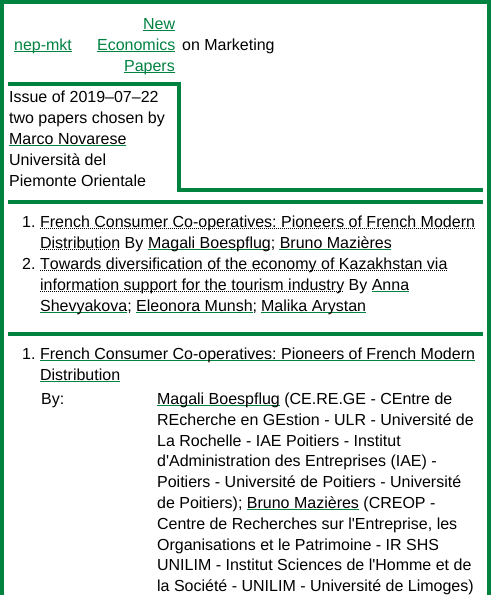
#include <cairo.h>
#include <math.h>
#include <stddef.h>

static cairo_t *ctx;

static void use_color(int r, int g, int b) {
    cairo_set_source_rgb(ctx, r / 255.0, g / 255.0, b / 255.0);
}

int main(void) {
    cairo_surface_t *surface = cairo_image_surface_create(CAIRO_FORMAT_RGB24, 491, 595);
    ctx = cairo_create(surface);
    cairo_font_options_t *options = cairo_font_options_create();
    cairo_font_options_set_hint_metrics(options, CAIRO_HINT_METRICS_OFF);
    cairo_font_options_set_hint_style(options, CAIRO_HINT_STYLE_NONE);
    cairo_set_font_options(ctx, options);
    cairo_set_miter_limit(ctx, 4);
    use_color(255, 255, 255);
    cairo_paint(ctx);
    cairo_rectangle(ctx, 2, 2, 487, 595);
    use_color(0, 130, 65);
    cairo_set_line_width(ctx, 4);
    cairo_stroke(ctx);
    cairo_rectangle(ctx, 14, 51, 58, 1);
    cairo_fill(ctx);
    cairo_select_font_face(ctx, "Liberation Sans", CAIRO_FONT_SLANT_NORMAL, CAIRO_FONT_WEIGHT_NORMAL);
    cairo_set_font_size(ctx, 16);
    cairo_move_to(ctx, 14, 50);
    cairo_show_text(ctx, "nep-mkt");
    cairo_move_to(ctx, 143, 29);
    cairo_show_text(ctx, "New");
    cairo_rectangle(ctx, 143, 30, 32, 1);
    cairo_fill(ctx);
    cairo_move_to(ctx, 97, 50);
    cairo_show_text(ctx, "Economics");
    cairo_rectangle(ctx, 97, 51, 78, 1);
    cairo_fill(ctx);
    cairo_rectangle(ctx, 124, 72, 51, 1);
    cairo_fill(ctx);
    cairo_move_to(ctx, 124, 71);
    cairo_show_text(ctx, "Papers");
    use_color(0, 0, 0);
    cairo_move_to(ctx, 182, 50);
    cairo_show_text(ctx, "on Marketing");
    use_color(0, 130, 65);
    cairo_rectangle(ctx, 8, 82, 171, 4);
    cairo_fill(ctx);
    cairo_rectangle(ctx, 177, 82, 2, 110);
    cairo_fill(ctx);
    use_color(0, 0, 0);
    cairo_move_to(ctx, 9, 102);
    cairo_show_text(ctx, "Issue of 2019‒07‒22");
    cairo_move_to(ctx, 9, 123);
    cairo_show_text(ctx, "two papers chosen by");
    cairo_move_to(ctx, 9, 144);
    cairo_show_text(ctx, "Marco Novarese");
    use_color(0, 130, 65);
    cairo_rectangle(ctx, 9, 145, 117, 1);
    cairo_fill(ctx);
    use_color(0, 0, 0);
    cairo_move_to(ctx, 9, 165);
    cairo_show_text(ctx, "Università del");
    cairo_move_to(ctx, 9, 186);
    cairo_show_text(ctx, "Piemonte Orientale");
    use_color(0, 130, 65);
    cairo_rectangle(ctx, 179, 188, 304, 4);
    cairo_fill(ctx);
    cairo_rectangle(ctx, 179, 82, 2, 110);
    cairo_fill(ctx);
    cairo_rectangle(ctx, 8, 200, 475, 4);
    cairo_fill(ctx);
    use_color(0, 0, 0);
    cairo_move_to(ctx, 22, 227);
    cairo_show_text(ctx, "1.");
    cairo_new_path(ctx);
    cairo_move_to(ctx, 40, 228.5);
    cairo_line_to(ctx, 475, 228.5);
    cairo_set_line_width(ctx, 1);
    cairo_set_dash(ctx, (double[]){1, 1}, 2, 0);
    cairo_stroke(ctx);
    cairo_move_to(ctx, 40, 227);
    cairo_show_text(ctx, "French Consumer Co-operatives: Pioneers of French Modern");
    cairo_new_path(ctx);
    cairo_move_to(ctx, 40, 249.5);
    cairo_line_to(ctx, 120, 249.5);
    cairo_stroke(ctx);
    cairo_move_to(ctx, 40, 248);
    cairo_show_text(ctx, "Distribution By");
    use_color(0, 130, 65);
    cairo_rectangle(ctx, 148, 249, 122, 1);
    cairo_fill(ctx);
    use_color(0, 0, 0);
    cairo_move_to(ctx, 148, 248);
    cairo_show_text(ctx, "Magali Boespflug; Bruno Mazières");
    use_color(0, 130, 65);
    cairo_rectangle(ctx, 279, 249, 112, 1);
    cairo_fill(ctx);
    use_color(0, 0, 0);
    cairo_move_to(ctx, 22, 269);
    cairo_show_text(ctx, "2.");
    cairo_new_path(ctx);
    cairo_move_to(ctx, 40, 270.5);
    cairo_line_to(ctx, 447.5, 270.5);
    cairo_stroke(ctx);
    cairo_move_to(ctx, 40, 269);
    cairo_show_text(ctx, "Towards diversification of the economy of Kazakhstan via");
    cairo_new_path(ctx);
    cairo_move_to(ctx, 40, 291.5);
    cairo_line_to(ctx, 344, 291.5);
    cairo_stroke(ctx);
    cairo_move_to(ctx, 40, 290);
    cairo_show_text(ctx, "information support for the tourism industry By Anna");
    use_color(0, 130, 65);
    cairo_rectangle(ctx, 40, 312, 87, 1);
    cairo_fill(ctx);
    use_color(0, 0, 0);
    cairo_move_to(ctx, 40, 311);
    cairo_show_text(ctx, "Shevyakova; Eleonorа Munsh;");
    use_color(0, 130, 65);
    cairo_rectangle(ctx, 372, 291, 37, 1);
    cairo_fill(ctx);
    cairo_rectangle(ctx, 261, 312, 105, 1);
    cairo_fill(ctx);
    use_color(0, 0, 0);
    cairo_move_to(ctx, 261, 311);
    cairo_show_text(ctx, "Malika Arystan");
    use_color(0, 130, 65);
    cairo_rectangle(ctx, 136, 312, 117, 1);
    cairo_fill(ctx);
    cairo_rectangle(ctx, 8, 332, 475, 4);
    cairo_fill(ctx);
    use_color(0, 0, 0);
    cairo_move_to(ctx, 22, 359);
    cairo_show_text(ctx, "1.");
    use_color(0, 130, 65);
    cairo_rectangle(ctx, 40, 360, 435, 1);
    cairo_fill(ctx);
    use_color(0, 0, 0);
    cairo_move_to(ctx, 40, 359);
    cairo_show_text(ctx, "French Consumer Co-operatives: Pioneers of French Modern");
    cairo_move_to(ctx, 40, 380);
    cairo_show_text(ctx, "Distribution");
    use_color(0, 130, 65);
    cairo_rectangle(ctx, 40, 381, 80, 1);
    cairo_fill(ctx);
    use_color(0, 0, 0);
    cairo_move_to(ctx, 41, 404);
    cairo_show_text(ctx, "By:");
    use_color(0, 130, 65);
    cairo_rectangle(ctx, 157, 405, 123, 1);
    cairo_fill(ctx);
    use_color(0, 0, 0);
    cairo_move_to(ctx, 157, 404);
    cairo_show_text(ctx, "Magali Boespflug (CE.RE.GE - CEntre de");
    cairo_move_to(ctx, 157, 425);
    cairo_show_text(ctx, "REcherche en GEstion - ULR - Université de");
    cairo_move_to(ctx, 157, 446);
    cairo_show_text(ctx, "La Rochelle - IAE Poitiers - Institut");
    cairo_move_to(ctx, 157, 466);
    cairo_show_text(ctx, "d'Administration des Entreprises (IAE) -");
    cairo_move_to(ctx, 157, 487);
    cairo_show_text(ctx, "Poitiers - Université de Poitiers - Université");
    cairo_move_to(ctx, 157, 508);
    cairo_show_text(ctx, "de Poitiers); Bruno Mazières (CREOP -");
    use_color(0, 130, 65);
    cairo_rectangle(ctx, 247, 509, 112, 1);
    cairo_fill(ctx);
    use_color(0, 0, 0);
    cairo_move_to(ctx, 157, 529);
    cairo_show_text(ctx, "Centre de Recherches sur l'Entreprise, les");
    cairo_move_to(ctx, 157, 550);
    cairo_show_text(ctx, "Organisations et le Patrimoine - IR SHS");
    cairo_move_to(ctx, 157, 570);
    cairo_show_text(ctx, "UNILIM - Institut Sciences de l'Homme et de");
    cairo_move_to(ctx, 157, 591);
    cairo_show_text(ctx, "la Société - UNILIM - Université de Limoges)");
    cairo_surface_write_to_png(surface, "result.png");
    cairo_font_options_destroy(options);
    cairo_destroy(ctx);
    cairo_surface_destroy(surface);
    return 0;
}
